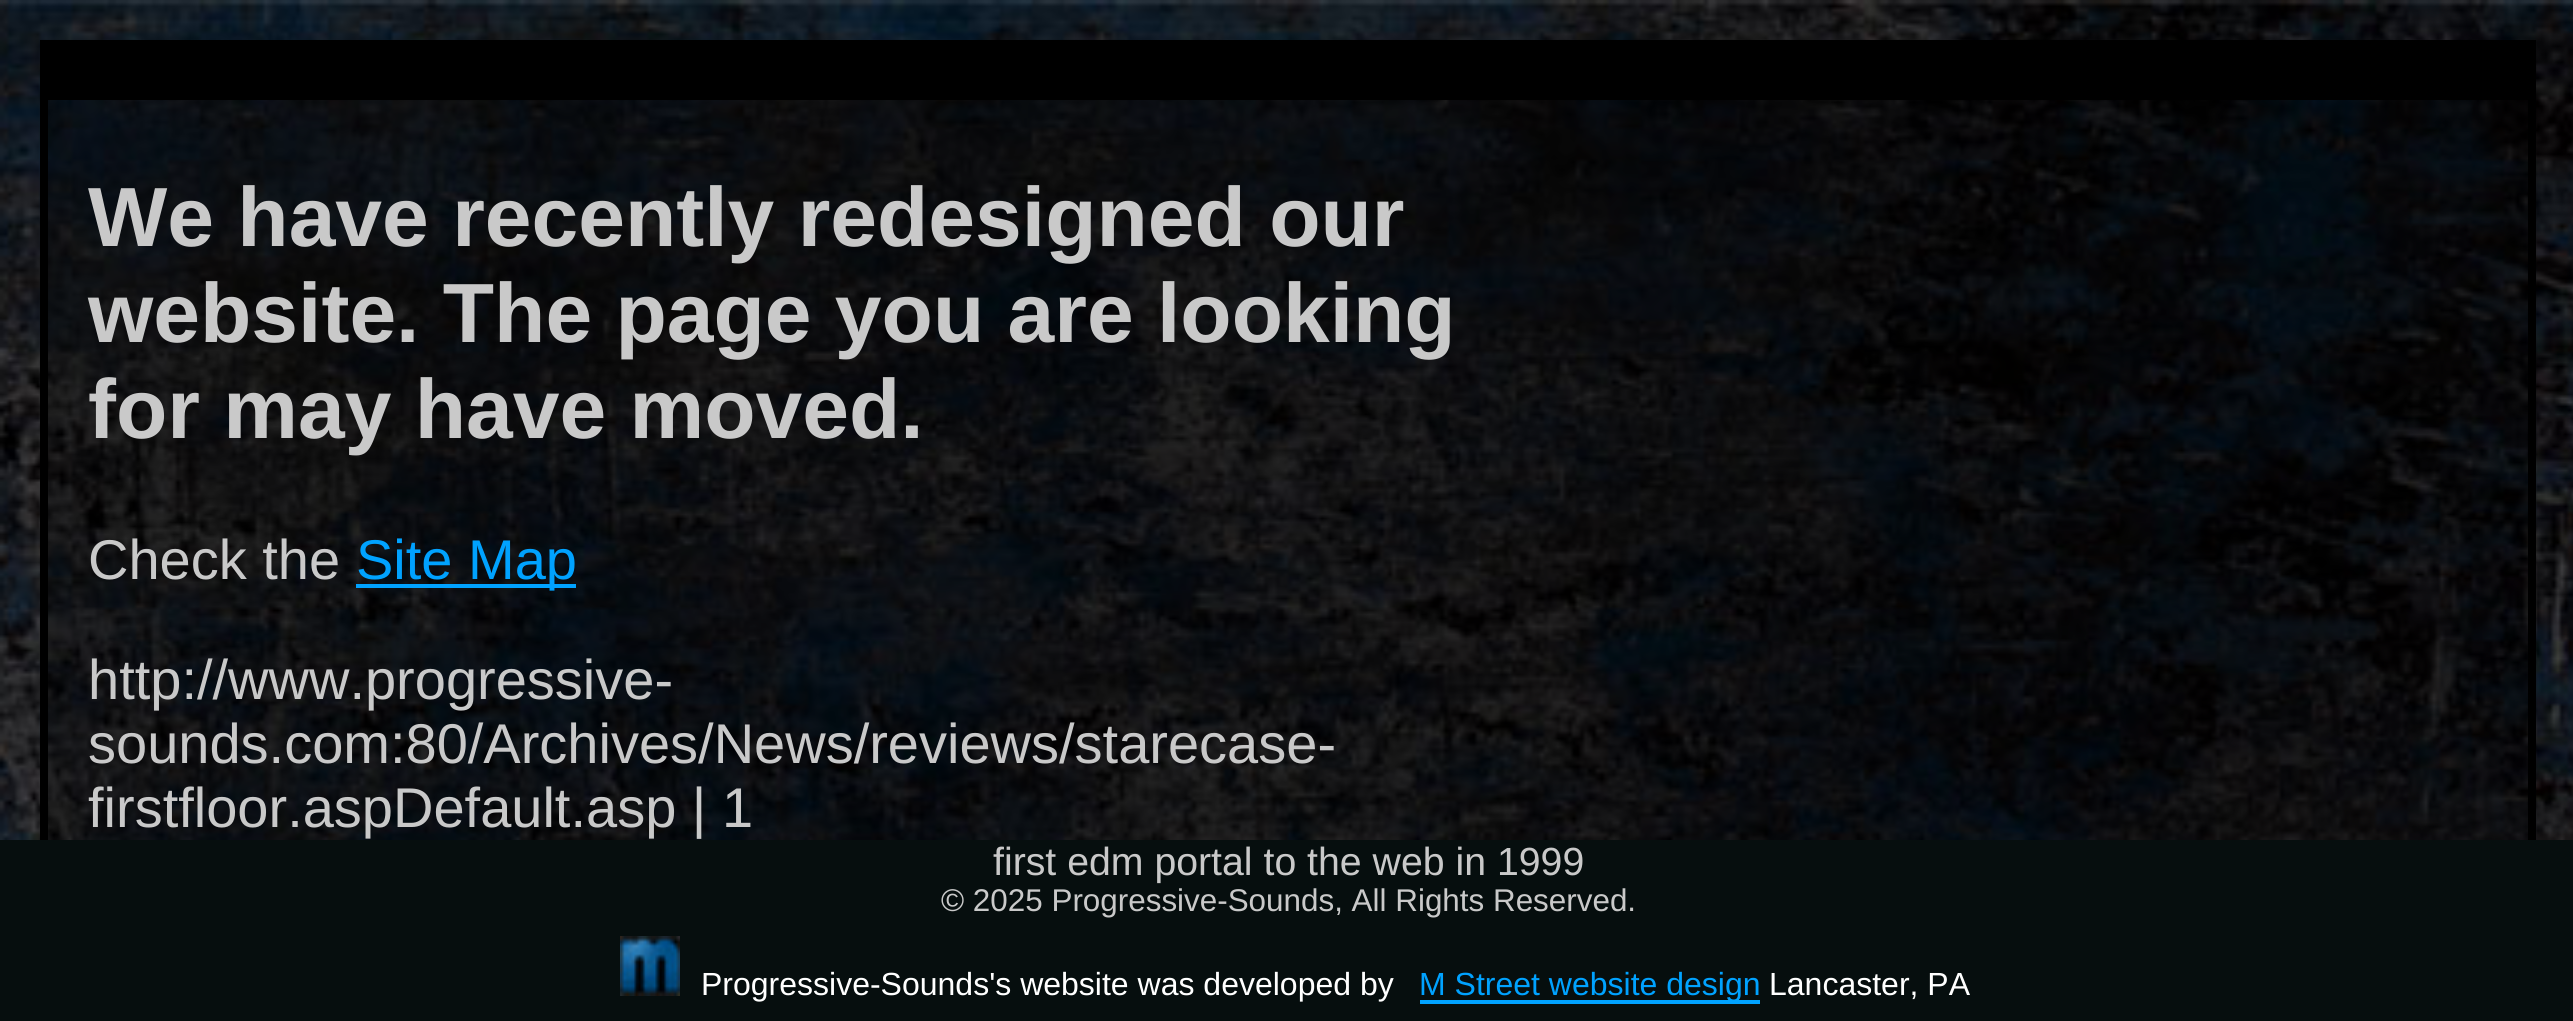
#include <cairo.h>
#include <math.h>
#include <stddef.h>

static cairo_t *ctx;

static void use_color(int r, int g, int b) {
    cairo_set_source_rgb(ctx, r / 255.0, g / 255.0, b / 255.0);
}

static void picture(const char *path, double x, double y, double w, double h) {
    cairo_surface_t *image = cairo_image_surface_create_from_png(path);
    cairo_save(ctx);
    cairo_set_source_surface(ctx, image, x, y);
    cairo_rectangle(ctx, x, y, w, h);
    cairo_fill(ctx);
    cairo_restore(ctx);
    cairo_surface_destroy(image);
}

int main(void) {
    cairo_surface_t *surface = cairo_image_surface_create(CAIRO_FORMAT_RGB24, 2573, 1021);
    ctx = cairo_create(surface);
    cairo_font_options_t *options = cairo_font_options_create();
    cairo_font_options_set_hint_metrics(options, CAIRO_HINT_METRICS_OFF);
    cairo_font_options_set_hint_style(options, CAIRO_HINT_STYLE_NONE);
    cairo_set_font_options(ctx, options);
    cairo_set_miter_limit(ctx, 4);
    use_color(6, 14, 14);
    cairo_paint(ctx);
    picture("img1.png", 0, 0, 2573, 840);
    use_color(0, 0, 0);
    cairo_rectangle(ctx, 40, 40, 2496, 60);
    cairo_fill(ctx);
    cairo_set_source_rgba(ctx, 0, 0, 0, 0.4);
    cairo_rectangle(ctx, 48, 100, 2480, 740);
    cairo_fill(ctx);
    use_color(0, 0, 0);
    cairo_rectangle(ctx, 2528, 100, 8, 740);
    cairo_fill(ctx);
    cairo_rectangle(ctx, 40, 100, 8, 740);
    cairo_fill(ctx);
    cairo_select_font_face(ctx, "Liberation Sans", CAIRO_FONT_SLANT_NORMAL, CAIRO_FONT_WEIGHT_BOLD);
    cairo_set_font_size(ctx, 84);
    use_color(201, 201, 201);
    cairo_move_to(ctx, 88, 246);
    cairo_show_text(ctx, "We have recently redesigned our");
    cairo_move_to(ctx, 88, 342);
    cairo_show_text(ctx, "website. The page you are looking");
    cairo_move_to(ctx, 88, 438);
    cairo_show_text(ctx, "for may have moved.");
    cairo_select_font_face(ctx, "Liberation Sans", CAIRO_FONT_SLANT_NORMAL, CAIRO_FONT_WEIGHT_NORMAL);
    cairo_set_font_size(ctx, 56);
    cairo_move_to(ctx, 88, 579);
    cairo_show_text(ctx, "Check the");
    use_color(0, 162, 255);
    cairo_rectangle(ctx, 356, 584, 220, 4);
    cairo_fill(ctx);
    cairo_move_to(ctx, 356, 579);
    cairo_show_text(ctx, "Site Map");
    use_color(201, 201, 201);
    cairo_move_to(ctx, 88, 699);
    cairo_show_text(ctx, "http://www.progressive-");
    cairo_move_to(ctx, 88, 763);
    cairo_show_text(ctx, "sounds.com:80/Archives/News/reviews/starecase-");
    cairo_move_to(ctx, 88, 827);
    cairo_show_text(ctx, "firstfloor.aspDefault.asp | 1");
    cairo_set_font_size(ctx, 39.25);
    cairo_move_to(ctx, 993, 875);
    cairo_show_text(ctx, "first edm portal to the web in 1999");
    cairo_set_font_size(ctx, 31.4);
    cairo_move_to(ctx, 941, 911);
    cairo_show_text(ctx, "© 2025 Progressive-Sounds, All Rights Reserved.");
    picture("img2.png", 620, 936, 60, 60);
    cairo_set_font_size(ctx, 32);
    use_color(255, 255, 255);
    cairo_move_to(ctx, 701, 995);
    cairo_show_text(ctx, "Progressive-Sounds's website was developed by");
    use_color(0, 162, 255);
    cairo_rectangle(ctx, 1420, 1000, 340, 4);
    cairo_fill(ctx);
    cairo_move_to(ctx, 1419, 995);
    cairo_show_text(ctx, "M Street website design");
    use_color(255, 255, 255);
    cairo_move_to(ctx, 1769, 995);
    cairo_show_text(ctx, "Lancaster, PA");
    cairo_surface_write_to_png(surface, "result.png");
    cairo_font_options_destroy(options);
    cairo_destroy(ctx);
    cairo_surface_destroy(surface);
    return 0;
}
